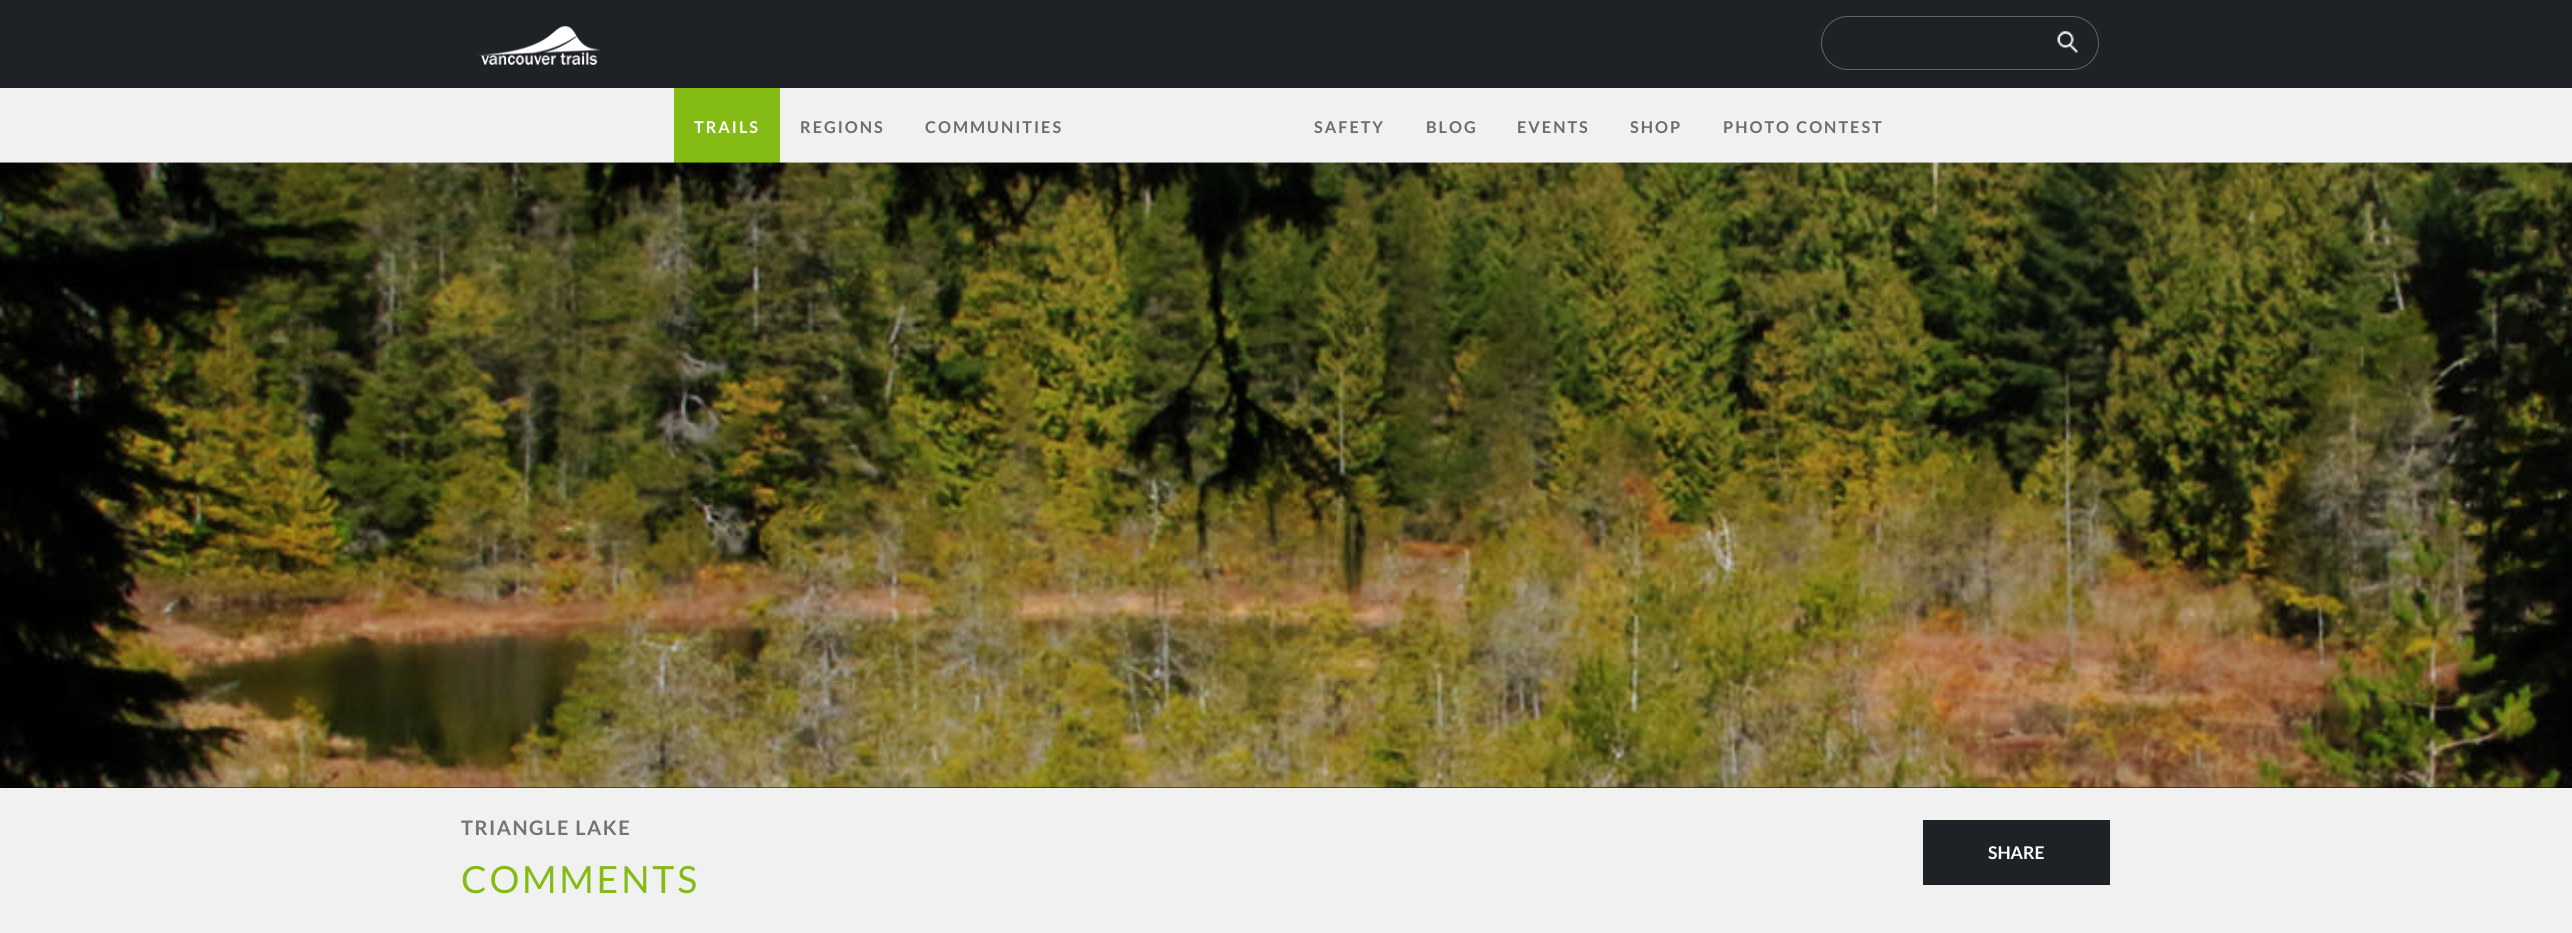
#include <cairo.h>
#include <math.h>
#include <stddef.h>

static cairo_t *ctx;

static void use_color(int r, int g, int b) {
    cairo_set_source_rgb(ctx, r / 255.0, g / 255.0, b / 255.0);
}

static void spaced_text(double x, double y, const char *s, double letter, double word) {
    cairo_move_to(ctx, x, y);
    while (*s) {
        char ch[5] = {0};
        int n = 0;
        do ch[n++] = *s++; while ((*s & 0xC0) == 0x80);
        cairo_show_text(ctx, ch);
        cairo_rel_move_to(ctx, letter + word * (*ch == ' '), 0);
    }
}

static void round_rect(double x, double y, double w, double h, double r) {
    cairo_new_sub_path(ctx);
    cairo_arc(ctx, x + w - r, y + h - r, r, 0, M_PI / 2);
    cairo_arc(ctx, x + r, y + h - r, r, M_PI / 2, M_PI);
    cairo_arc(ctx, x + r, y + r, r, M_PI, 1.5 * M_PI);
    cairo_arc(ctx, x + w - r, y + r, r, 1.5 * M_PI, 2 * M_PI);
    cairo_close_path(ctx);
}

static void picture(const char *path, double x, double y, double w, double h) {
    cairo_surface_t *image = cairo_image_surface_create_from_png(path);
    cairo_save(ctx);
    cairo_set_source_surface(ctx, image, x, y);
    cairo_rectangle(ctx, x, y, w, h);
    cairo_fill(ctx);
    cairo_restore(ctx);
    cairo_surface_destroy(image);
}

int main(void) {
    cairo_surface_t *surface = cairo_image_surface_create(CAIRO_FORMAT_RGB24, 2572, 933);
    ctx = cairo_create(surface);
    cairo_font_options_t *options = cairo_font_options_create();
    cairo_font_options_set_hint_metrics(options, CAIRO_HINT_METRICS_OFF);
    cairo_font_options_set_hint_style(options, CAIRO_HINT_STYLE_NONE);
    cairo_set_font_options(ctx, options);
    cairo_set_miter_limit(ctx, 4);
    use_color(241, 241, 241);
    cairo_paint(ctx);
    use_color(30, 33, 38);
    cairo_rectangle(ctx, 0, 0, 2572, 88);
    cairo_fill(ctx);
    picture("img1.png", 478, 26, 123, 39);
    round_rect(1821.5, 16.5, 277, 53, 26.5);
    use_color(97, 99, 102);
    cairo_set_line_width(ctx, 1);
    cairo_stroke(ctx);
    picture("img2.png", 2057, 31, 21, 22);
    use_color(132, 187, 21);
    cairo_rectangle(ctx, 674, 88, 106, 75);
    cairo_fill(ctx);
    cairo_select_font_face(ctx, "Lato", CAIRO_FONT_SLANT_NORMAL, CAIRO_FONT_WEIGHT_BOLD);
    cairo_set_font_size(ctx, 16.25);
    use_color(255, 255, 255);
    spaced_text(694, 133, "TRAILS", 2, 0);
    use_color(108, 108, 108);
    spaced_text(800, 133, "REGIONS", 2, 0);
    spaced_text(925, 133, "COMMUNITIES", 2, 0);
    spaced_text(1314, 133, "SAFETY", 2, 0);
    spaced_text(1426, 133, "BLOG", 2, 0);
    spaced_text(1517, 133, "EVENTS", 2, 0);
    spaced_text(1630, 133, "SHOP", 2, 0);
    spaced_text(1723, 133, "PHOTO CONTEST", 2, 0);
    use_color(0, 0, 0);
    cairo_rectangle(ctx, 0, 163, 2572, 625);
    cairo_fill(ctx);
    picture("img3.png", 0, 162, 2572, 626);
    cairo_set_font_size(ctx, 20);
    use_color(114, 116, 119);
    spaced_text(461, 835, "TRIANGLE LAKE", 1.5, 0);
    cairo_select_font_face(ctx, "Lato", CAIRO_FONT_SLANT_NORMAL, CAIRO_FONT_WEIGHT_NORMAL);
    cairo_set_font_size(ctx, 37.5);
    use_color(132, 187, 21);
    spaced_text(461, 893, "COMMENTS", 2.75, 0);
    use_color(30, 33, 38);
    cairo_rectangle(ctx, 1923, 820, 187, 65);
    cairo_fill(ctx);
    cairo_select_font_face(ctx, "Lato", CAIRO_FONT_SLANT_NORMAL, CAIRO_FONT_WEIGHT_BOLD);
    cairo_set_font_size(ctx, 17.5);
    use_color(255, 255, 255);
    cairo_move_to(ctx, 1988, 859);
    cairo_show_text(ctx, "SHARE");
    cairo_surface_write_to_png(surface, "result.png");
    cairo_font_options_destroy(options);
    cairo_destroy(ctx);
    cairo_surface_destroy(surface);
    return 0;
}
